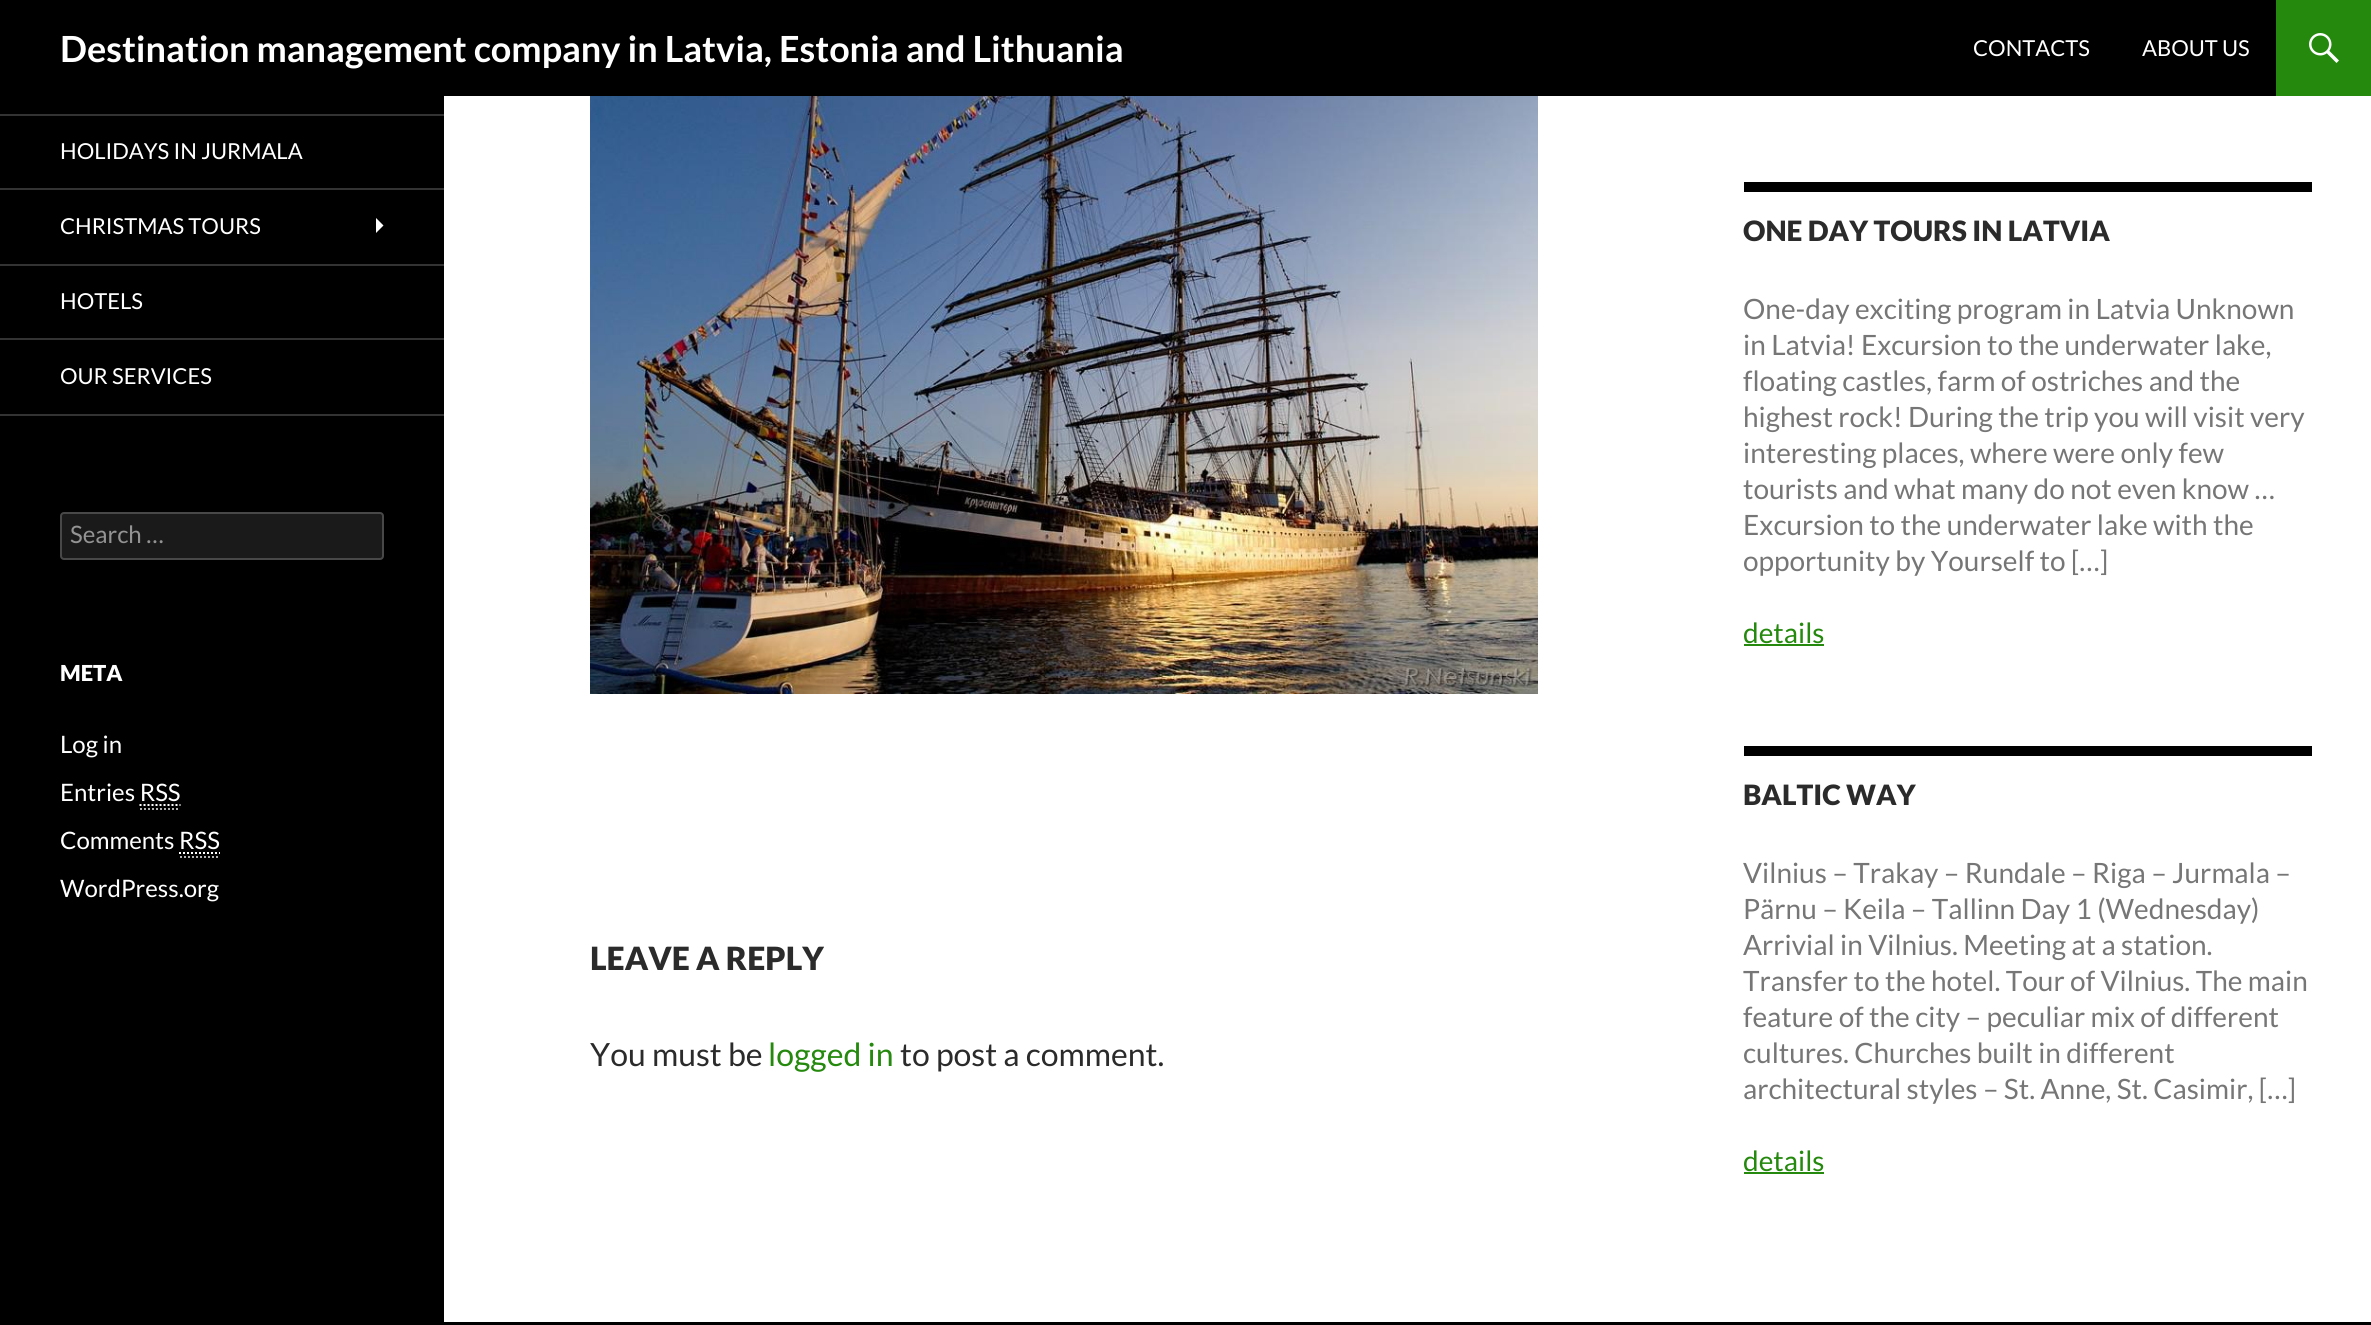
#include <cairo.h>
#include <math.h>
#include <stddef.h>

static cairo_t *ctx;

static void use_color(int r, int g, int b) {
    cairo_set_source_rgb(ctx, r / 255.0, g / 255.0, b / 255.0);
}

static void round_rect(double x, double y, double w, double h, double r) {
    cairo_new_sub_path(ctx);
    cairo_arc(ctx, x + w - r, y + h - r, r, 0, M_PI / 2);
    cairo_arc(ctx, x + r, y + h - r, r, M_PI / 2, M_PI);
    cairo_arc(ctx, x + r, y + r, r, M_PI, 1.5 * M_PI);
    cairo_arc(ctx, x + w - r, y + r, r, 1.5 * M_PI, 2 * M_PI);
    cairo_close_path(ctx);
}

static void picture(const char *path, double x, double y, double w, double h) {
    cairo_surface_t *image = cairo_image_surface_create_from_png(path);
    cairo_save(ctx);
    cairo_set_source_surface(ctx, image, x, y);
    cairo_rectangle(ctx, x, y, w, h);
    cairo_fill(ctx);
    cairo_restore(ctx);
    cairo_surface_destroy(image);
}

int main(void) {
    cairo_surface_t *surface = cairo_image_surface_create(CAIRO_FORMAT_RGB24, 2371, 1325);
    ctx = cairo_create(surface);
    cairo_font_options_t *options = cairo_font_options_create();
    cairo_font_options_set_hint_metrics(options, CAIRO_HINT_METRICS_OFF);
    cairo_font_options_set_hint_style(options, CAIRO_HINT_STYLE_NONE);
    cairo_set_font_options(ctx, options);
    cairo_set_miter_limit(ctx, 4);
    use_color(255, 255, 255);
    cairo_paint(ctx);
    use_color(0, 0, 0);
    cairo_rectangle(ctx, 0, 0, 2276, 96);
    cairo_fill(ctx);
    cairo_select_font_face(ctx, "Lato", CAIRO_FONT_SLANT_NORMAL, CAIRO_FONT_WEIGHT_BOLD);
    cairo_set_font_size(ctx, 36);
    use_color(255, 255, 255);
    cairo_move_to(ctx, 60, 62);
    cairo_show_text(ctx, "Destination management company in Latvia, Estonia and Lithuania");
    cairo_select_font_face(ctx, "Lato", CAIRO_FONT_SLANT_NORMAL, CAIRO_FONT_WEIGHT_NORMAL);
    cairo_set_font_size(ctx, 22);
    cairo_move_to(ctx, 1973, 56);
    cairo_show_text(ctx, "CONTACTS");
    cairo_move_to(ctx, 2142, 56);
    cairo_show_text(ctx, "ABOUT US");
    use_color(36, 137, 13);
    cairo_rectangle(ctx, 2276, 0, 95, 96);
    cairo_fill(ctx);
    picture("img1.png", 2309, 33, 30, 30);
    use_color(0, 0, 0);
    cairo_rectangle(ctx, 0, 96, 444, 1226);
    cairo_fill(ctx);
    use_color(51, 51, 51);
    cairo_rectangle(ctx, 0, 414, 444, 2);
    cairo_fill(ctx);
    cairo_rectangle(ctx, 0, 114, 444, 2);
    cairo_fill(ctx);
    use_color(255, 255, 255);
    cairo_move_to(ctx, 60, 159);
    cairo_show_text(ctx, "HOLIDAYS IN JURMALA");
    use_color(51, 51, 51);
    cairo_rectangle(ctx, 0, 188, 444, 2);
    cairo_fill(ctx);
    use_color(255, 255, 255);
    cairo_move_to(ctx, 60, 234);
    cairo_show_text(ctx, "CHRISTMAS TOURS");
    cairo_new_path(ctx);
    cairo_move_to(ctx, 376, 233);
    cairo_line_to(ctx, 383.5, 225.5);
    cairo_line_to(ctx, 376, 218);
    cairo_close_path(ctx);
    cairo_fill(ctx);
    use_color(51, 51, 51);
    cairo_rectangle(ctx, 0, 264, 444, 2);
    cairo_fill(ctx);
    use_color(255, 255, 255);
    cairo_move_to(ctx, 60, 309);
    cairo_show_text(ctx, "HOTELS");
    use_color(51, 51, 51);
    cairo_rectangle(ctx, 0, 338, 444, 2);
    cairo_fill(ctx);
    use_color(255, 255, 255);
    cairo_move_to(ctx, 60, 384);
    cairo_show_text(ctx, "OUR SERVICES");
    use_color(26, 26, 26);
    round_rect(60, 512, 324, 48, 4);
    cairo_fill(ctx);
    round_rect(61, 513, 322, 46, 3);
    cairo_set_source_rgba(ctx, 1, 1, 1, 0.2);
    cairo_stroke(ctx);
    cairo_set_font_size(ctx, 24);
    use_color(147, 147, 147);
    cairo_move_to(ctx, 70, 543);
    cairo_show_text(ctx, "Search …");
    cairo_select_font_face(ctx, "Lato Black", CAIRO_FONT_SLANT_NORMAL, CAIRO_FONT_WEIGHT_NORMAL);
    cairo_set_font_size(ctx, 22);
    use_color(255, 255, 255);
    cairo_move_to(ctx, 60, 681);
    cairo_show_text(ctx, "META");
    cairo_select_font_face(ctx, "Lato", CAIRO_FONT_SLANT_NORMAL, CAIRO_FONT_WEIGHT_NORMAL);
    cairo_set_font_size(ctx, 24);
    cairo_move_to(ctx, 60, 753);
    cairo_show_text(ctx, "Log in");
    cairo_move_to(ctx, 60, 801);
    cairo_show_text(ctx, "Entries RSS");
    cairo_new_path(ctx);
    cairo_move_to(ctx, 140, 809);
    cairo_line_to(ctx, 180, 809);
    use_color(179, 179, 179);
    cairo_set_dash(ctx, (double[]){2, 2}, 2, 0);
    cairo_stroke(ctx);
    cairo_new_path(ctx);
    cairo_move_to(ctx, 139.5, 805);
    cairo_line_to(ctx, 180.5, 805);
    use_color(255, 255, 255);
    cairo_stroke(ctx);
    cairo_move_to(ctx, 60, 849);
    cairo_show_text(ctx, "Comments RSS");
    cairo_new_path(ctx);
    cairo_move_to(ctx, 180, 857);
    cairo_line_to(ctx, 220, 857);
    use_color(179, 179, 179);
    cairo_stroke(ctx);
    cairo_new_path(ctx);
    cairo_move_to(ctx, 179, 853);
    cairo_line_to(ctx, 220, 853);
    use_color(255, 255, 255);
    cairo_stroke(ctx);
    cairo_move_to(ctx, 60, 897);
    cairo_show_text(ctx, "WordPress.org");
    picture("img2.png", 590, 96, 948, 598);
    cairo_select_font_face(ctx, "Lato Black", CAIRO_FONT_SLANT_NORMAL, CAIRO_FONT_WEIGHT_NORMAL);
    cairo_set_font_size(ctx, 32);
    use_color(43, 43, 43);
    cairo_move_to(ctx, 590, 970);
    cairo_show_text(ctx, "LEAVE A REPLY");
    cairo_select_font_face(ctx, "Lato", CAIRO_FONT_SLANT_NORMAL, CAIRO_FONT_WEIGHT_NORMAL);
    cairo_move_to(ctx, 590, 1066);
    cairo_show_text(ctx, "You must be");
    use_color(36, 137, 13);
    cairo_move_to(ctx, 768, 1066);
    cairo_show_text(ctx, "logged in");
    use_color(43, 43, 43);
    cairo_move_to(ctx, 900, 1066);
    cairo_show_text(ctx, "to post a comment.");
    use_color(0, 0, 0);
    cairo_rectangle(ctx, 1744, 182, 568, 10);
    cairo_fill(ctx);
    cairo_select_font_face(ctx, "Lato Black", CAIRO_FONT_SLANT_NORMAL, CAIRO_FONT_WEIGHT_NORMAL);
    cairo_set_font_size(ctx, 28);
    use_color(43, 43, 43);
    cairo_move_to(ctx, 1743, 241);
    cairo_show_text(ctx, "ONE DAY TOURS IN LATVIA");
    cairo_select_font_face(ctx, "Lato", CAIRO_FONT_SLANT_NORMAL, CAIRO_FONT_WEIGHT_NORMAL);
    use_color(118, 118, 118);
    cairo_move_to(ctx, 1743, 319);
    cairo_show_text(ctx, "One-day exciting program in Latvia Unknown");
    cairo_move_to(ctx, 1743, 355);
    cairo_show_text(ctx, "in Latvia! Excursion to the underwater lake,");
    cairo_move_to(ctx, 1743, 391);
    cairo_show_text(ctx, "floating castles, farm of ostriches and the");
    cairo_move_to(ctx, 1743, 427);
    cairo_show_text(ctx, "highest rock! During the trip you will visit very");
    cairo_move_to(ctx, 1743, 463);
    cairo_show_text(ctx, "interesting places, where were only few");
    cairo_move_to(ctx, 1743, 499);
    cairo_show_text(ctx, "tourists and what many do not even know …");
    cairo_move_to(ctx, 1743, 535);
    cairo_show_text(ctx, "Excursion to the underwater lake with the");
    cairo_move_to(ctx, 1743, 571);
    cairo_show_text(ctx, "opportunity by Yourself to […]");
    use_color(36, 137, 13);
    cairo_move_to(ctx, 1743, 643);
    cairo_show_text(ctx, "details");
    cairo_rectangle(ctx, 1744, 644, 80, 2);
    cairo_fill(ctx);
    use_color(0, 0, 0);
    cairo_rectangle(ctx, 1744, 746, 568, 10);
    cairo_fill(ctx);
    cairo_select_font_face(ctx, "Lato Black", CAIRO_FONT_SLANT_NORMAL, CAIRO_FONT_WEIGHT_NORMAL);
    use_color(43, 43, 43);
    cairo_move_to(ctx, 1743, 805);
    cairo_show_text(ctx, "BALTIC WAY");
    cairo_select_font_face(ctx, "Lato", CAIRO_FONT_SLANT_NORMAL, CAIRO_FONT_WEIGHT_NORMAL);
    use_color(118, 118, 118);
    cairo_move_to(ctx, 1743, 883);
    cairo_show_text(ctx, "Vilnius – Trakay – Rundale – Riga – Jurmala –");
    cairo_move_to(ctx, 1743, 919);
    cairo_show_text(ctx, "Pärnu – Keila – Tallinn Day 1 (Wednesday)");
    cairo_move_to(ctx, 1743, 955);
    cairo_show_text(ctx, "Arrivial in Vilnius. Meeting at a station.");
    cairo_move_to(ctx, 1743, 991);
    cairo_show_text(ctx, "Transfer to the hotel. Tour of Vilnius. The main");
    cairo_move_to(ctx, 1743, 1027);
    cairo_show_text(ctx, "feature of the city – peculiar mix of different");
    cairo_move_to(ctx, 1743, 1063);
    cairo_show_text(ctx, "cultures. Churches built in different");
    cairo_move_to(ctx, 1743, 1099);
    cairo_show_text(ctx, "architectural styles – St. Anne, St. Casimir, […]");
    use_color(36, 137, 13);
    cairo_move_to(ctx, 1743, 1171);
    cairo_show_text(ctx, "details");
    cairo_rectangle(ctx, 1744, 1172, 80, 2);
    cairo_fill(ctx);
    use_color(0, 0, 0);
    cairo_rectangle(ctx, 0, 1322, 2371, 3);
    cairo_fill(ctx);
    cairo_surface_write_to_png(surface, "result.png");
    cairo_font_options_destroy(options);
    cairo_destroy(ctx);
    cairo_surface_destroy(surface);
    return 0;
}
